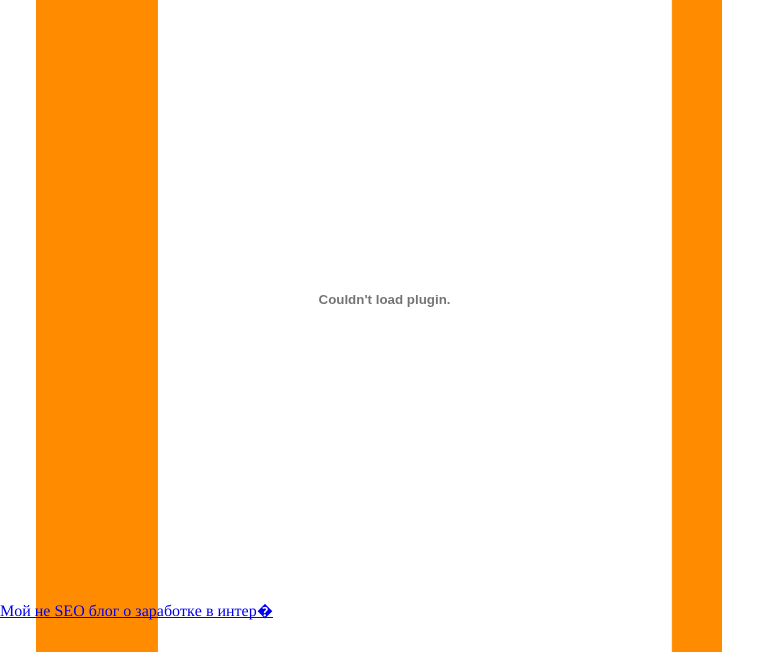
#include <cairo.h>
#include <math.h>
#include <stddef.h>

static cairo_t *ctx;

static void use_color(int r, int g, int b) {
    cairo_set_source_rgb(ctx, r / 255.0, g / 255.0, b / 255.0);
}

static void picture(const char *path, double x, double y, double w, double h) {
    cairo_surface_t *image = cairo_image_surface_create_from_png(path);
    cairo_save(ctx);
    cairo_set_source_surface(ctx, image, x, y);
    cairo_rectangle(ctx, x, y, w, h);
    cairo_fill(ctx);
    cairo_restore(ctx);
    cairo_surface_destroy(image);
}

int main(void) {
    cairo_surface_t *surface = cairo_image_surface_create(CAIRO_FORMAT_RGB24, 757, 652);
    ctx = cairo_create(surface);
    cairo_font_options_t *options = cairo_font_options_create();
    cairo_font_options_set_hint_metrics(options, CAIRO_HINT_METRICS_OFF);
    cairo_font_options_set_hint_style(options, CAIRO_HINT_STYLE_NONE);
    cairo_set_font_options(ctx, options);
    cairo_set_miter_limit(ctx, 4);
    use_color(255, 255, 255);
    cairo_paint(ctx);
    picture("img1.png", 36, 0, 686, 652);
    picture("img2.png", 319, 295, 131, 12);
    use_color(0, 0, 238);
    cairo_rectangle(ctx, 0, 617, 273, 1);
    cairo_fill(ctx);
    cairo_select_font_face(ctx, "Liberation Serif", CAIRO_FONT_SLANT_NORMAL, CAIRO_FONT_WEIGHT_NORMAL);
    cairo_set_font_size(ctx, 16);
    cairo_move_to(ctx, 0, 616);
    cairo_show_text(ctx, "Мой не SEO блог о заработке в интер");
    cairo_select_font_face(ctx, "Noto Sans", CAIRO_FONT_SLANT_NORMAL, CAIRO_FONT_WEIGHT_NORMAL);
    cairo_move_to(ctx, 257, 616);
    cairo_show_text(ctx, "�");
    cairo_surface_write_to_png(surface, "result.png");
    cairo_font_options_destroy(options);
    cairo_destroy(ctx);
    cairo_surface_destroy(surface);
    return 0;
}
